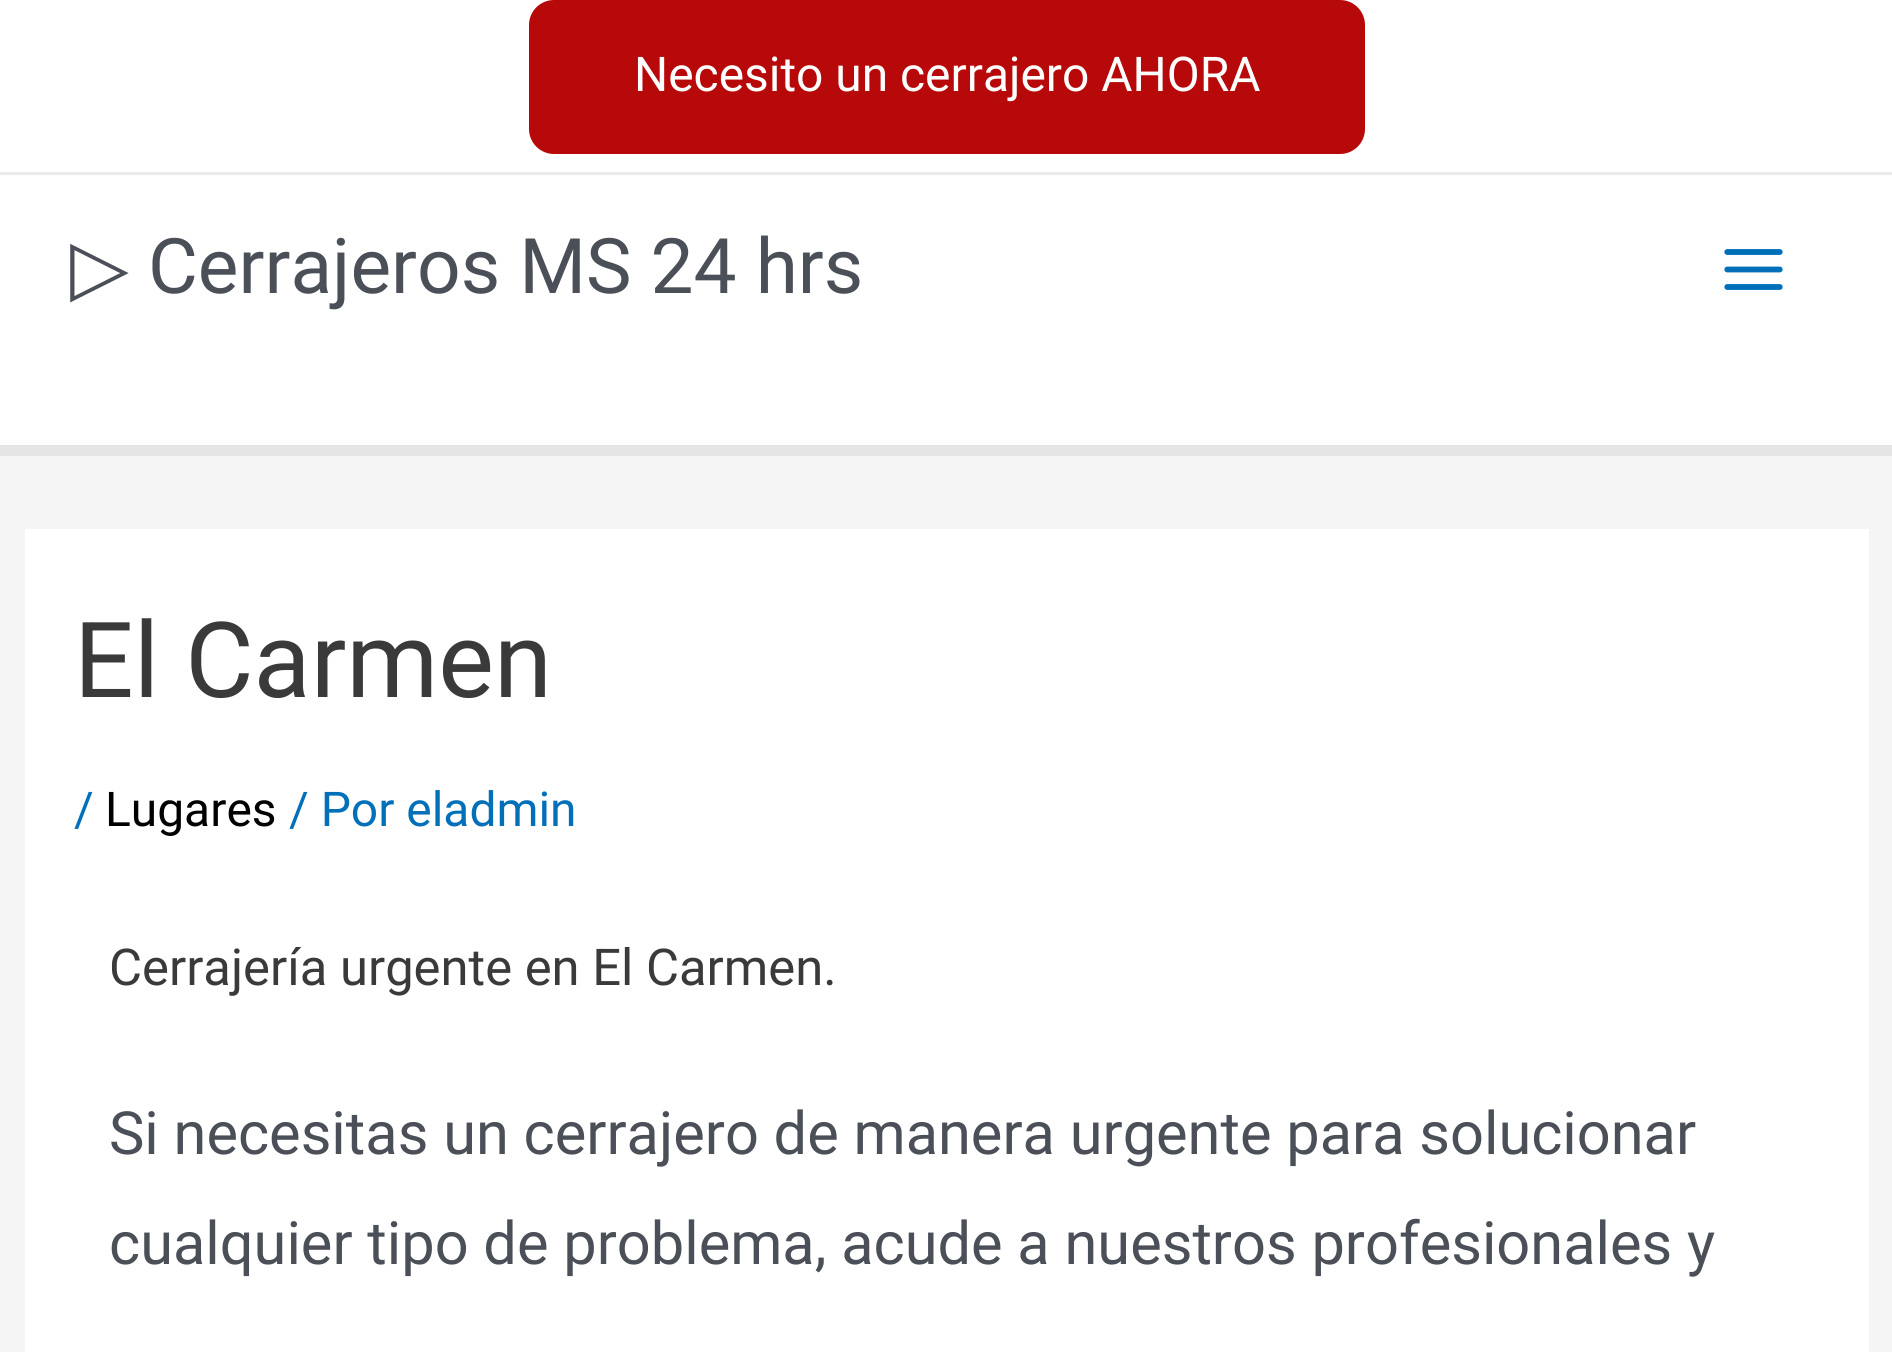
#include <cairo.h>
#include <math.h>
#include <stddef.h>

static cairo_t *ctx;

static void use_color(int r, int g, int b) {
    cairo_set_source_rgb(ctx, r / 255.0, g / 255.0, b / 255.0);
}

static void round_rect(double x, double y, double w, double h, double r) {
    cairo_new_sub_path(ctx);
    cairo_arc(ctx, x + w - r, y + h - r, r, 0, M_PI / 2);
    cairo_arc(ctx, x + r, y + h - r, r, M_PI / 2, M_PI);
    cairo_arc(ctx, x + r, y + r, r, M_PI, 1.5 * M_PI);
    cairo_arc(ctx, x + w - r, y + r, r, 1.5 * M_PI, 2 * M_PI);
    cairo_close_path(ctx);
}

static void picture(const char *path, double x, double y, double w, double h) {
    cairo_surface_t *image = cairo_image_surface_create_from_png(path);
    cairo_save(ctx);
    cairo_set_source_surface(ctx, image, x, y);
    cairo_rectangle(ctx, x, y, w, h);
    cairo_fill(ctx);
    cairo_restore(ctx);
    cairo_surface_destroy(image);
}

int main(void) {
    cairo_surface_t *surface = cairo_image_surface_create(CAIRO_FORMAT_RGB24, 1892, 1352);
    ctx = cairo_create(surface);
    cairo_font_options_t *options = cairo_font_options_create();
    cairo_font_options_set_hint_metrics(options, CAIRO_HINT_METRICS_OFF);
    cairo_font_options_set_hint_style(options, CAIRO_HINT_STYLE_NONE);
    cairo_set_font_options(ctx, options);
    cairo_set_miter_limit(ctx, 4);
    use_color(245, 245, 245);
    cairo_paint(ctx);
    use_color(255, 255, 255);
    cairo_rectangle(ctx, 0, 0, 1892, 172);
    cairo_fill(ctx);
    use_color(234, 234, 234);
    cairo_rectangle(ctx, 0, 172, 1892, 3);
    cairo_fill(ctx);
    use_color(183, 9, 9);
    round_rect(529, 0, 836, 154, 25);
    cairo_fill(ctx);
    cairo_select_font_face(ctx, "Roboto", CAIRO_FONT_SLANT_NORMAL, CAIRO_FONT_WEIGHT_NORMAL);
    cairo_set_font_size(ctx, 47.9);
    use_color(255, 255, 255);
    cairo_move_to(ctx, 634, 91);
    cairo_show_text(ctx, "Necesito un cerrajero AHORA");
    cairo_rectangle(ctx, 0, 175, 1892, 270);
    cairo_fill(ctx);
    use_color(229, 229, 229);
    cairo_rectangle(ctx, 0, 445, 1892, 11);
    cairo_fill(ctx);
    cairo_select_font_face(ctx, "DejaVu Sans", CAIRO_FONT_SLANT_NORMAL, CAIRO_FONT_WEIGHT_NORMAL);
    cairo_set_font_size(ctx, 76.6);
    use_color(75, 79, 88);
    cairo_move_to(ctx, 70, 293);
    cairo_show_text(ctx, "▷");
    cairo_select_font_face(ctx, "Roboto", CAIRO_FONT_SLANT_NORMAL, CAIRO_FONT_WEIGHT_NORMAL);
    cairo_move_to(ctx, 148, 293);
    cairo_show_text(ctx, "Cerrajeros MS 24 hrs");
    picture("img1.png", 1724, 249, 59, 41);
    use_color(255, 255, 255);
    cairo_rectangle(ctx, 25, 529, 1844, 823);
    cairo_fill(ctx);
    cairo_set_font_size(ctx, 105);
    use_color(58, 58, 58);
    cairo_move_to(ctx, 74, 697);
    cairo_show_text(ctx, "El Carmen");
    cairo_set_font_size(ctx, 47.9);
    use_color(1, 112, 185);
    cairo_move_to(ctx, 74, 826);
    cairo_show_text(ctx, "/");
    use_color(0, 0, 0);
    cairo_move_to(ctx, 105, 826);
    cairo_show_text(ctx, "Lugares");
    use_color(1, 112, 185);
    cairo_move_to(ctx, 289, 826);
    cairo_show_text(ctx, "/ Por eladmin");
    cairo_set_font_size(ctx, 50.75);
    use_color(58, 58, 58);
    cairo_move_to(ctx, 109, 985);
    cairo_show_text(ctx, "Cerrajería urgente en El Carmen.");
    cairo_set_font_size(ctx, 59.5);
    use_color(75, 79, 88);
    cairo_move_to(ctx, 109, 1154);
    cairo_show_text(ctx, "Si necesitas un cerrajero de manera urgente para solucionar");
    cairo_move_to(ctx, 109, 1264);
    cairo_show_text(ctx, "cualquier tipo de problema, acude a nuestros profesionales y");
    cairo_surface_write_to_png(surface, "result.png");
    cairo_font_options_destroy(options);
    cairo_destroy(ctx);
    cairo_surface_destroy(surface);
    return 0;
}
